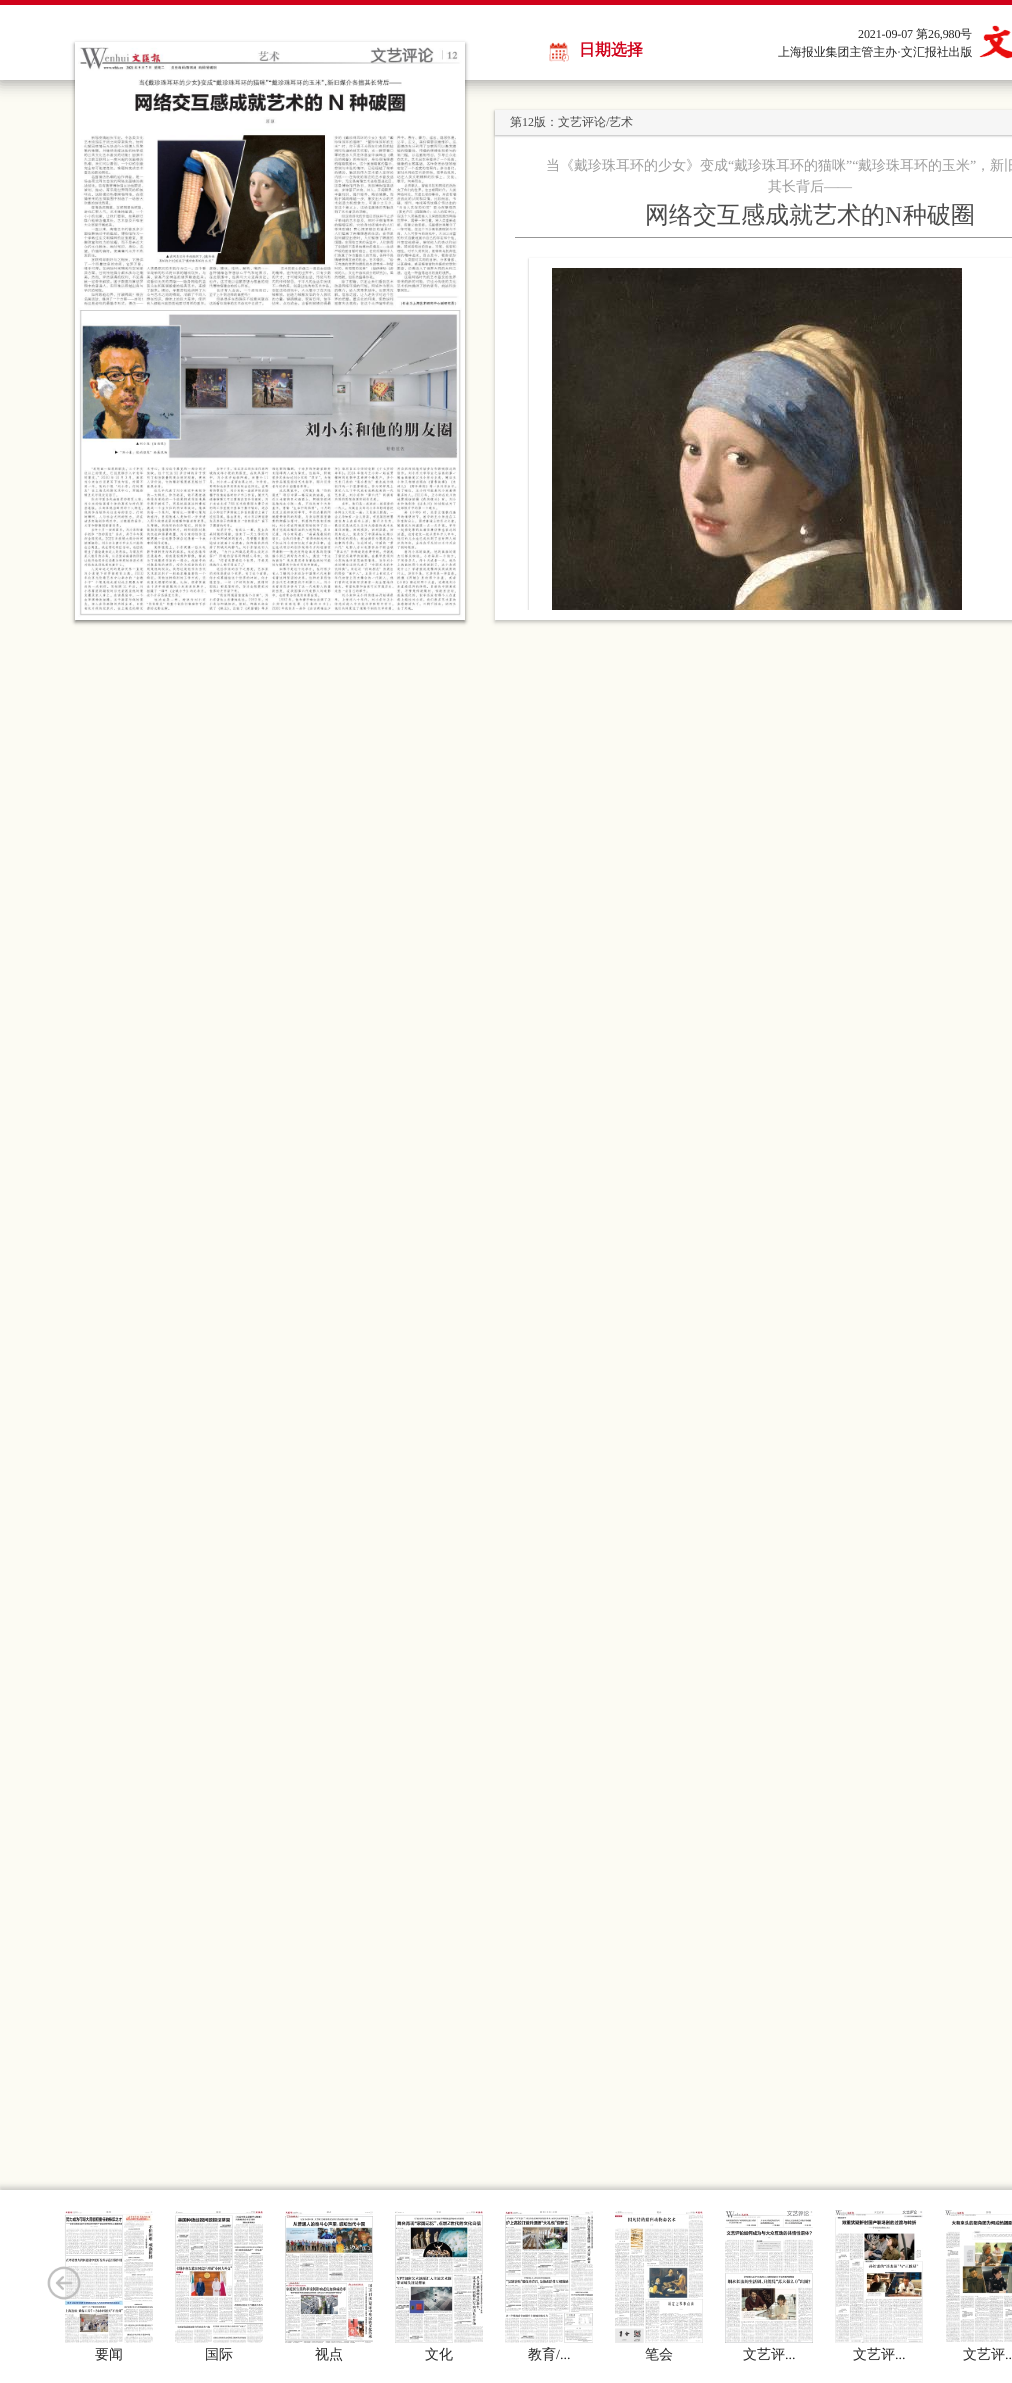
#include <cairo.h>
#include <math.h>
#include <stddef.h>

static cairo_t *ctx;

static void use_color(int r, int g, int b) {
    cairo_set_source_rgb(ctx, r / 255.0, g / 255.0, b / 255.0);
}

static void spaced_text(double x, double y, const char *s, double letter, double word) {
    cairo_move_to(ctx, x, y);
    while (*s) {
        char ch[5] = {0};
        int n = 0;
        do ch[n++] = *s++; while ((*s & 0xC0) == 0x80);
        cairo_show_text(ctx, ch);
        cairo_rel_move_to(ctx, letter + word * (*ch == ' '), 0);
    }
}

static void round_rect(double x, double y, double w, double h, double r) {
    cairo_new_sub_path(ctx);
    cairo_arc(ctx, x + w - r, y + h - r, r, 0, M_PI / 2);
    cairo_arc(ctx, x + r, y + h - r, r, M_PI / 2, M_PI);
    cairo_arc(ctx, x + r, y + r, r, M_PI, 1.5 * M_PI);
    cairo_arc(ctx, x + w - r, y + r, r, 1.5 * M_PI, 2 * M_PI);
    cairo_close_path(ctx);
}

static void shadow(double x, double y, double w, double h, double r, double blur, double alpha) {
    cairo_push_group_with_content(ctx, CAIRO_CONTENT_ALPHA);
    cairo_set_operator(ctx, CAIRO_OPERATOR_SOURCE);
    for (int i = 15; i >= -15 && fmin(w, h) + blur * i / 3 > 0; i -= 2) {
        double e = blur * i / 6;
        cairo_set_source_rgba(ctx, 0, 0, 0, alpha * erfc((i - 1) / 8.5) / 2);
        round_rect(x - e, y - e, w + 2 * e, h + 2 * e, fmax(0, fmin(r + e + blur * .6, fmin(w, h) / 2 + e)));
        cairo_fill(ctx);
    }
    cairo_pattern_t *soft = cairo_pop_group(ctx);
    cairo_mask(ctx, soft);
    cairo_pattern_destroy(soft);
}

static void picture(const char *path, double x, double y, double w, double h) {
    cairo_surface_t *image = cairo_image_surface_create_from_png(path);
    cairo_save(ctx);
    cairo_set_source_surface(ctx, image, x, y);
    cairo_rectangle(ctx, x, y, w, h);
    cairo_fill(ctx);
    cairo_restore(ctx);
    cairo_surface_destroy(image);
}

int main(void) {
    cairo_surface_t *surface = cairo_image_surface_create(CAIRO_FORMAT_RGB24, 1012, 2383);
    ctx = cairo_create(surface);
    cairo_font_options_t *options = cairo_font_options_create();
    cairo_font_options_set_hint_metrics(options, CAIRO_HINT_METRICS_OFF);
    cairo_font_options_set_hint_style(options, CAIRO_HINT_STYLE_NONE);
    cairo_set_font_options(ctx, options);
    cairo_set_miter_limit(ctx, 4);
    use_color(252, 251, 243);
    cairo_paint(ctx);
    use_color(155, 155, 155);
    shadow(0, 2, 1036, 80, 0, 8, 1);
    use_color(255, 255, 255);
    cairo_rectangle(ctx, 0, 5, 1012, 75);
    cairo_fill(ctx);
    use_color(208, 2, 27);
    cairo_rectangle(ctx, 0, 0, 1012, 5);
    cairo_fill(ctx);
    picture("img1.png", 549, 42, 20, 20);
    cairo_select_font_face(ctx, "WenQuanYi Zen Hei", CAIRO_FONT_SLANT_NORMAL, CAIRO_FONT_WEIGHT_BOLD);
    cairo_set_font_size(ctx, 16);
    cairo_move_to(ctx, 579, 55);
    cairo_show_text(ctx, "日期选择");
    cairo_select_font_face(ctx, "Liberation Serif", CAIRO_FONT_SLANT_NORMAL, CAIRO_FONT_WEIGHT_NORMAL);
    cairo_set_font_size(ctx, 12);
    use_color(37, 37, 37);
    spaced_text(858, 38, "2021-09-07", -0.1, 0);
    cairo_select_font_face(ctx, "WenQuanYi Zen Hei Medium", CAIRO_FONT_SLANT_NORMAL, CAIRO_FONT_WEIGHT_NORMAL);
    spaced_text(916, 38, "第", -0.1, 0);
    cairo_select_font_face(ctx, "Liberation Serif", CAIRO_FONT_SLANT_NORMAL, CAIRO_FONT_WEIGHT_NORMAL);
    spaced_text(928, 38, "26,980", -0.1, 0);
    cairo_select_font_face(ctx, "WenQuanYi Zen Hei Medium", CAIRO_FONT_SLANT_NORMAL, CAIRO_FONT_WEIGHT_NORMAL);
    spaced_text(960, 38, "号", -0.1, 0);
    spaced_text(778, 56, "上海报业集团主管主办", -0.1, 0);
    cairo_select_font_face(ctx, "Liberation Serif", CAIRO_FONT_SLANT_NORMAL, CAIRO_FONT_WEIGHT_NORMAL);
    spaced_text(897, 56, "·", -0.1, 0);
    cairo_select_font_face(ctx, "WenQuanYi Zen Hei Medium", CAIRO_FONT_SLANT_NORMAL, CAIRO_FONT_WEIGHT_NORMAL);
    spaced_text(901, 56, "文汇报社出版", -0.1, 0);
    picture("img2.png", 979, 25, 33, 34);
    cairo_save(ctx);
    cairo_set_fill_rule(ctx, CAIRO_FILL_RULE_EVEN_ODD);
    cairo_new_path(ctx);
    cairo_move_to(ctx, 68, 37);
    cairo_line_to(ctx, 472, 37);
    cairo_line_to(ctx, 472, 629);
    cairo_line_to(ctx, 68, 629);
    cairo_close_path(ctx);
    cairo_move_to(ctx, 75, 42);
    cairo_line_to(ctx, 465, 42);
    cairo_line_to(ctx, 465, 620);
    cairo_line_to(ctx, 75, 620);
    cairo_close_path(ctx);
    cairo_clip(ctx);
    use_color(0, 0, 0);
    shadow(75, 44, 390, 578, 0, 2, 0.5);
    cairo_restore(ctx);
    picture("img3.png", 75, 47, 390, 573);
    use_color(125, 125, 125);
    shadow(495, 112, 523, 510, 0, 2, 0.5);
    use_color(255, 255, 255);
    cairo_rectangle(ctx, 495, 135, 517, 485);
    cairo_fill(ctx);
    use_color(125, 125, 125);
    shadow(495, 111, 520, 25, 0, 1, 0.5);
    use_color(246, 246, 246);
    cairo_rectangle(ctx, 495, 110, 517, 25);
    cairo_fill(ctx);
    use_color(74, 74, 74);
    cairo_move_to(ctx, 510, 126);
    cairo_show_text(ctx, "第");
    cairo_select_font_face(ctx, "Liberation Serif", CAIRO_FONT_SLANT_NORMAL, CAIRO_FONT_WEIGHT_NORMAL);
    cairo_move_to(ctx, 522, 126);
    cairo_show_text(ctx, "12");
    cairo_select_font_face(ctx, "WenQuanYi Zen Hei Medium", CAIRO_FONT_SLANT_NORMAL, CAIRO_FONT_WEIGHT_NORMAL);
    cairo_move_to(ctx, 534, 126);
    cairo_show_text(ctx, "版：文艺评论");
    cairo_select_font_face(ctx, "Liberation Serif", CAIRO_FONT_SLANT_NORMAL, CAIRO_FONT_WEIGHT_NORMAL);
    cairo_move_to(ctx, 606, 126);
    cairo_show_text(ctx, "/");
    cairo_select_font_face(ctx, "WenQuanYi Zen Hei Medium", CAIRO_FONT_SLANT_NORMAL, CAIRO_FONT_WEIGHT_NORMAL);
    cairo_move_to(ctx, 609, 126);
    cairo_show_text(ctx, "艺术");
    cairo_set_font_size(ctx, 14);
    use_color(155, 155, 155);
    cairo_move_to(ctx, 546, 170);
    cairo_show_text(ctx, "当《戴珍珠耳环的少女》变成");
    cairo_select_font_face(ctx, "Liberation Serif", CAIRO_FONT_SLANT_NORMAL, CAIRO_FONT_WEIGHT_NORMAL);
    cairo_move_to(ctx, 728, 170);
    cairo_show_text(ctx, "“");
    cairo_select_font_face(ctx, "WenQuanYi Zen Hei Medium", CAIRO_FONT_SLANT_NORMAL, CAIRO_FONT_WEIGHT_NORMAL);
    cairo_move_to(ctx, 734, 170);
    cairo_show_text(ctx, "戴珍珠耳环的猫咪");
    cairo_select_font_face(ctx, "Liberation Serif", CAIRO_FONT_SLANT_NORMAL, CAIRO_FONT_WEIGHT_NORMAL);
    cairo_move_to(ctx, 846, 170);
    cairo_show_text(ctx, "”“");
    cairo_select_font_face(ctx, "WenQuanYi Zen Hei Medium", CAIRO_FONT_SLANT_NORMAL, CAIRO_FONT_WEIGHT_NORMAL);
    cairo_move_to(ctx, 858, 170);
    cairo_show_text(ctx, "戴珍珠耳环的玉米");
    cairo_select_font_face(ctx, "Liberation Serif", CAIRO_FONT_SLANT_NORMAL, CAIRO_FONT_WEIGHT_NORMAL);
    cairo_move_to(ctx, 970, 170);
    cairo_show_text(ctx, "”");
    cairo_select_font_face(ctx, "WenQuanYi Zen Hei Medium", CAIRO_FONT_SLANT_NORMAL, CAIRO_FONT_WEIGHT_NORMAL);
    cairo_move_to(ctx, 976, 170);
    cairo_show_text(ctx, "，新旧");
    cairo_move_to(ctx, 768, 191);
    cairo_show_text(ctx, "其长背后");
    cairo_select_font_face(ctx, "Liberation Serif", CAIRO_FONT_SLANT_NORMAL, CAIRO_FONT_WEIGHT_NORMAL);
    cairo_move_to(ctx, 824, 191);
    cairo_show_text(ctx, "——");
    cairo_select_font_face(ctx, "WenQuanYi Zen Hei Medium", CAIRO_FONT_SLANT_NORMAL, CAIRO_FONT_WEIGHT_NORMAL);
    cairo_set_font_size(ctx, 24);
    use_color(74, 74, 74);
    cairo_move_to(ctx, 645, 223);
    cairo_show_text(ctx, "网络交互感成就艺术的");
    cairo_select_font_face(ctx, "Liberation Serif", CAIRO_FONT_SLANT_NORMAL, CAIRO_FONT_WEIGHT_NORMAL);
    cairo_move_to(ctx, 885, 223);
    cairo_show_text(ctx, "N");
    cairo_select_font_face(ctx, "WenQuanYi Zen Hei Medium", CAIRO_FONT_SLANT_NORMAL, CAIRO_FONT_WEIGHT_NORMAL);
    cairo_move_to(ctx, 903, 223);
    cairo_show_text(ctx, "种破圈");
    use_color(151, 151, 151);
    cairo_rectangle(ctx, 515, 237, 497, 1);
    cairo_fill(ctx);
    cairo_save(ctx);
    cairo_rectangle(ctx, 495, 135, 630, 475);
    cairo_clip(ctx);
    cairo_set_fill_rule(ctx, CAIRO_FILL_RULE_EVEN_ODD);
    cairo_new_path(ctx);
    cairo_move_to(ctx, 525, 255);
    cairo_line_to(ctx, 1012, 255);
    cairo_line_to(ctx, 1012, 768);
    cairo_line_to(ctx, 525, 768);
    cairo_close_path(ctx);
    cairo_move_to(ctx, 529, 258);
    cairo_line_to(ctx, 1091, 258);
    cairo_line_to(ctx, 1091, 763);
    cairo_line_to(ctx, 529, 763);
    cairo_close_path(ctx);
    cairo_clip(ctx);
    use_color(185, 185, 185);
    shadow(529, 259, 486, 505, 0, 1, 1);
    cairo_restore(ctx);
    picture("img4.png", 552, 268, 410, 342);
    use_color(155, 155, 155);
    shadow(0, 2187, 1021, 193, 0, 3, 0.53);
    use_color(255, 255, 255);
    cairo_rectangle(ctx, 0, 2190, 1012, 193);
    cairo_fill(ctx);
    picture("img6.png", 64, 2211, 89, 132);
    picture("img5.png", 47, 2266, 34, 34);
    cairo_set_font_size(ctx, 14);
    use_color(37, 37, 37);
    cairo_move_to(ctx, 95, 2359);
    cairo_show_text(ctx, "要闻");
    picture("img7.png", 175, 2211, 88, 132);
    cairo_move_to(ctx, 205, 2359);
    cairo_show_text(ctx, "国际");
    picture("img8.png", 285, 2211, 88, 132);
    cairo_move_to(ctx, 315, 2359);
    cairo_show_text(ctx, "视点");
    picture("img9.png", 395, 2211, 88, 132);
    cairo_move_to(ctx, 425, 2359);
    cairo_show_text(ctx, "文化");
    picture("img10.png", 505, 2211, 88, 132);
    cairo_move_to(ctx, 528, 2359);
    cairo_show_text(ctx, "教育");
    cairo_select_font_face(ctx, "Liberation Serif", CAIRO_FONT_SLANT_NORMAL, CAIRO_FONT_WEIGHT_NORMAL);
    cairo_move_to(ctx, 556, 2359);
    cairo_show_text(ctx, "/...");
    picture("img11.png", 615, 2211, 88, 132);
    cairo_select_font_face(ctx, "WenQuanYi Zen Hei Medium", CAIRO_FONT_SLANT_NORMAL, CAIRO_FONT_WEIGHT_NORMAL);
    cairo_move_to(ctx, 645, 2359);
    cairo_show_text(ctx, "笔会");
    picture("img12.png", 725, 2210, 88, 133);
    cairo_move_to(ctx, 743, 2359);
    cairo_show_text(ctx, "文艺评");
    cairo_select_font_face(ctx, "Liberation Serif", CAIRO_FONT_SLANT_NORMAL, CAIRO_FONT_WEIGHT_NORMAL);
    cairo_move_to(ctx, 785, 2359);
    cairo_show_text(ctx, "...");
    picture("img13.png", 835, 2210, 88, 133);
    cairo_select_font_face(ctx, "WenQuanYi Zen Hei Medium", CAIRO_FONT_SLANT_NORMAL, CAIRO_FONT_WEIGHT_NORMAL);
    cairo_move_to(ctx, 853, 2359);
    cairo_show_text(ctx, "文艺评");
    cairo_select_font_face(ctx, "Liberation Serif", CAIRO_FONT_SLANT_NORMAL, CAIRO_FONT_WEIGHT_NORMAL);
    cairo_move_to(ctx, 895, 2359);
    cairo_show_text(ctx, "...");
    picture("img14.png", 945, 2210, 67, 132);
    cairo_select_font_face(ctx, "WenQuanYi Zen Hei Medium", CAIRO_FONT_SLANT_NORMAL, CAIRO_FONT_WEIGHT_NORMAL);
    cairo_move_to(ctx, 963, 2359);
    cairo_show_text(ctx, "文艺评");
    cairo_select_font_face(ctx, "Liberation Serif", CAIRO_FONT_SLANT_NORMAL, CAIRO_FONT_WEIGHT_NORMAL);
    cairo_move_to(ctx, 1005, 2359);
    cairo_show_text(ctx, "..");
    cairo_surface_write_to_png(surface, "result.png");
    cairo_font_options_destroy(options);
    cairo_destroy(ctx);
    cairo_surface_destroy(surface);
    return 0;
}
